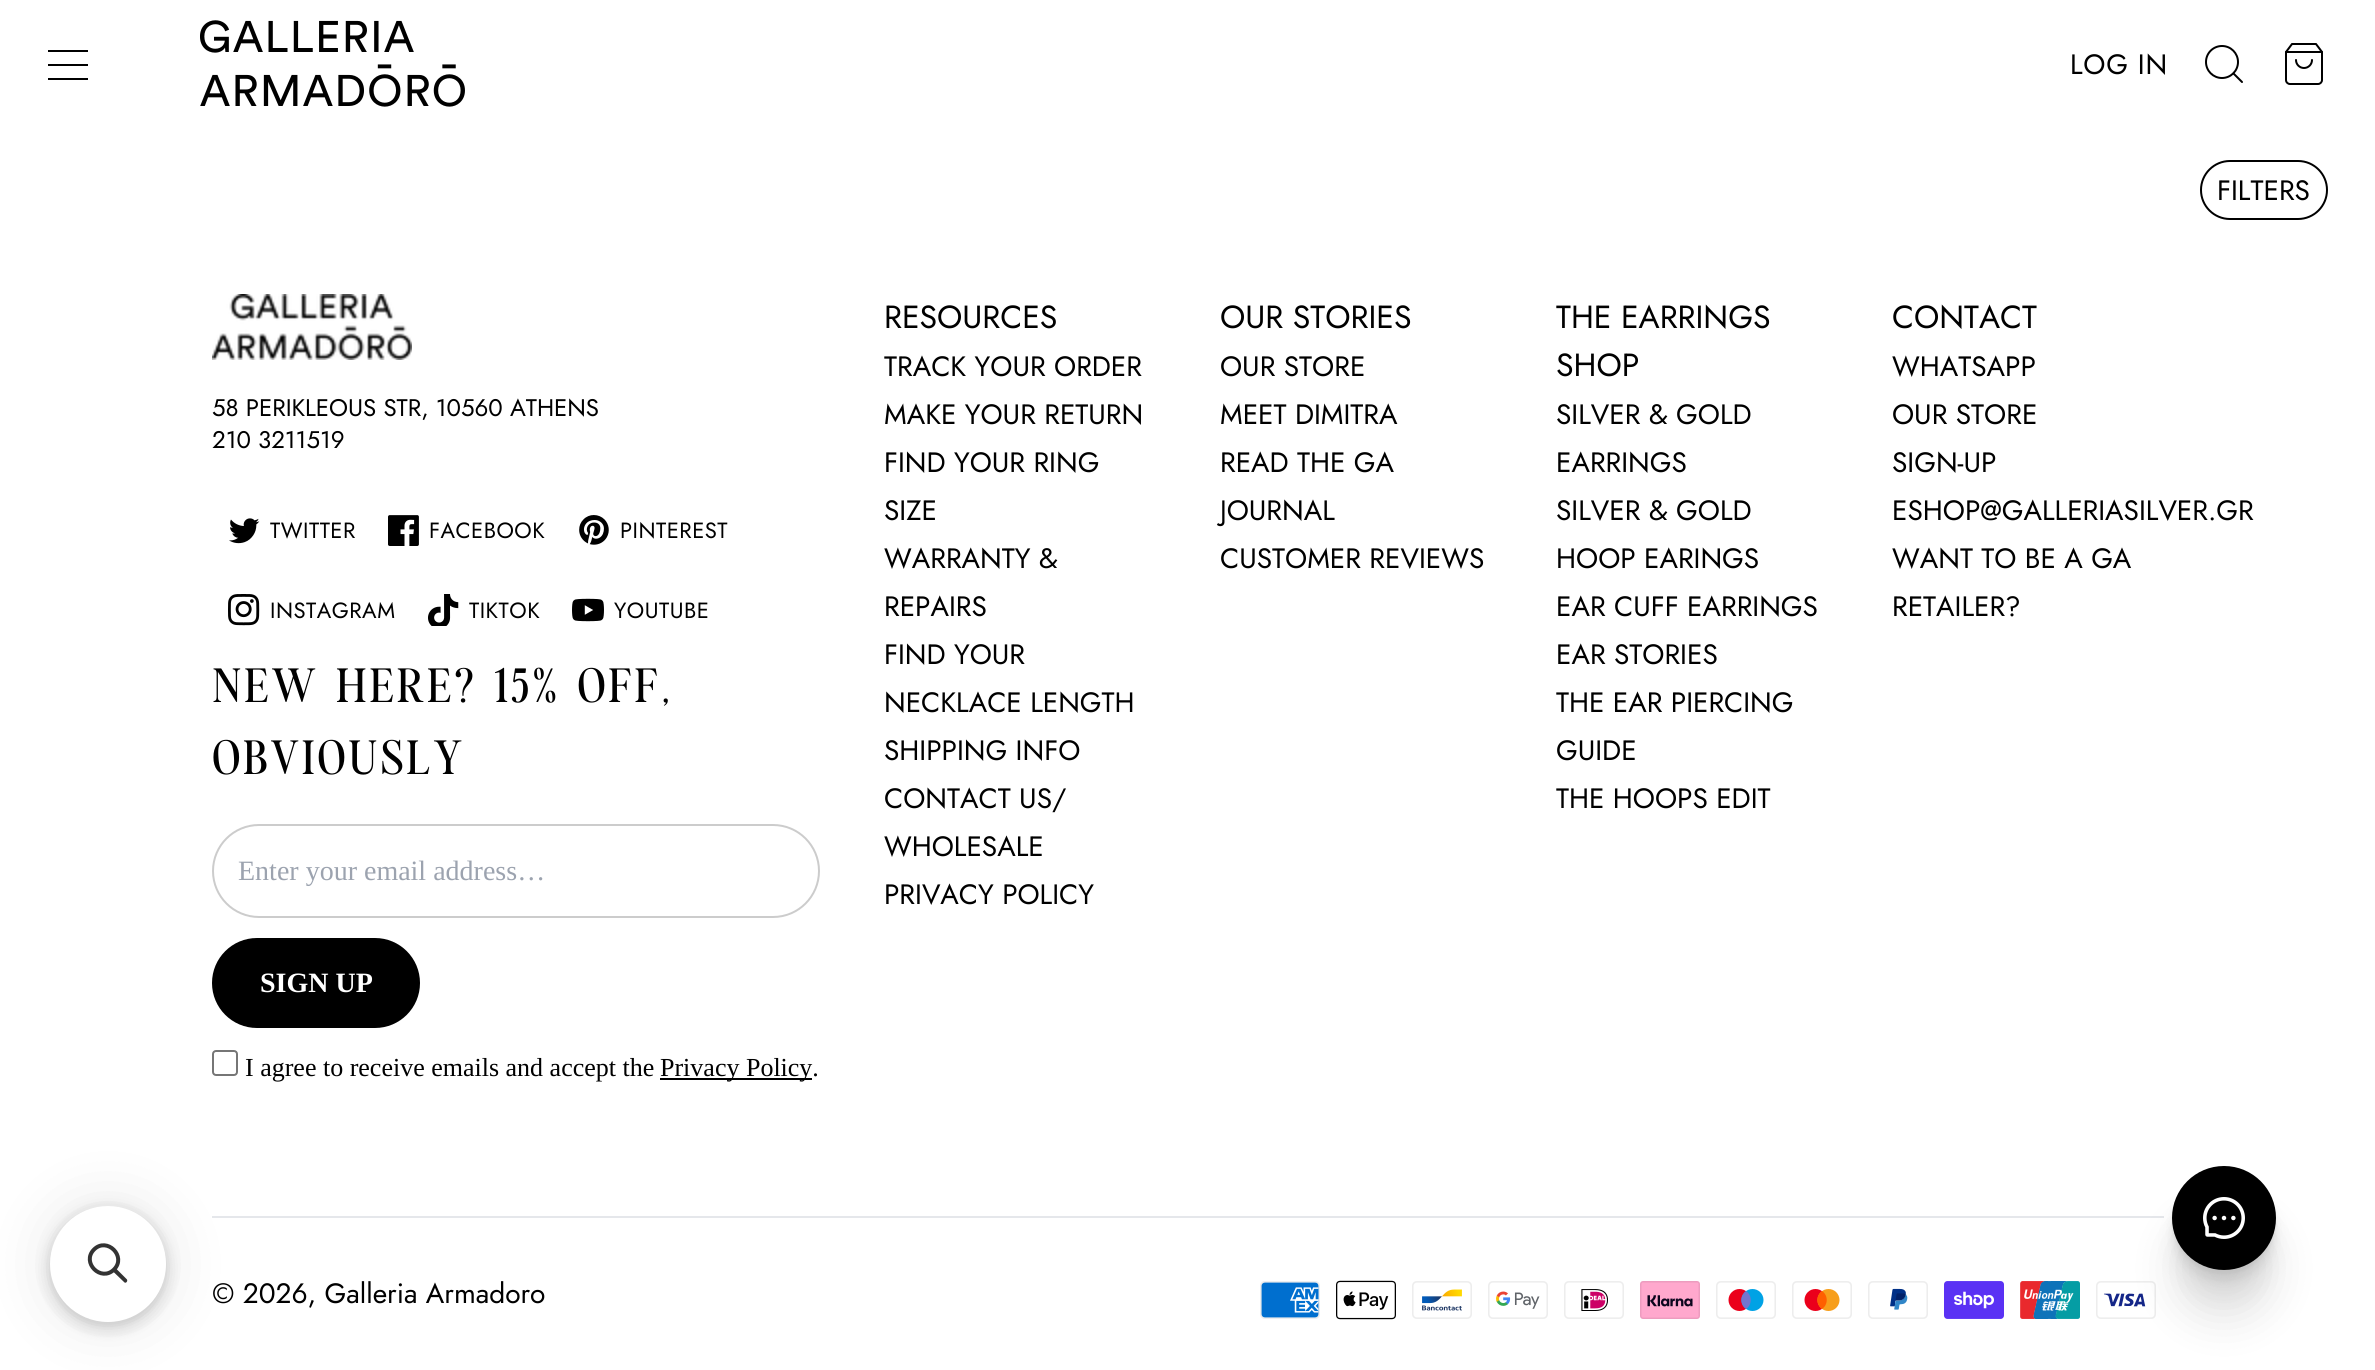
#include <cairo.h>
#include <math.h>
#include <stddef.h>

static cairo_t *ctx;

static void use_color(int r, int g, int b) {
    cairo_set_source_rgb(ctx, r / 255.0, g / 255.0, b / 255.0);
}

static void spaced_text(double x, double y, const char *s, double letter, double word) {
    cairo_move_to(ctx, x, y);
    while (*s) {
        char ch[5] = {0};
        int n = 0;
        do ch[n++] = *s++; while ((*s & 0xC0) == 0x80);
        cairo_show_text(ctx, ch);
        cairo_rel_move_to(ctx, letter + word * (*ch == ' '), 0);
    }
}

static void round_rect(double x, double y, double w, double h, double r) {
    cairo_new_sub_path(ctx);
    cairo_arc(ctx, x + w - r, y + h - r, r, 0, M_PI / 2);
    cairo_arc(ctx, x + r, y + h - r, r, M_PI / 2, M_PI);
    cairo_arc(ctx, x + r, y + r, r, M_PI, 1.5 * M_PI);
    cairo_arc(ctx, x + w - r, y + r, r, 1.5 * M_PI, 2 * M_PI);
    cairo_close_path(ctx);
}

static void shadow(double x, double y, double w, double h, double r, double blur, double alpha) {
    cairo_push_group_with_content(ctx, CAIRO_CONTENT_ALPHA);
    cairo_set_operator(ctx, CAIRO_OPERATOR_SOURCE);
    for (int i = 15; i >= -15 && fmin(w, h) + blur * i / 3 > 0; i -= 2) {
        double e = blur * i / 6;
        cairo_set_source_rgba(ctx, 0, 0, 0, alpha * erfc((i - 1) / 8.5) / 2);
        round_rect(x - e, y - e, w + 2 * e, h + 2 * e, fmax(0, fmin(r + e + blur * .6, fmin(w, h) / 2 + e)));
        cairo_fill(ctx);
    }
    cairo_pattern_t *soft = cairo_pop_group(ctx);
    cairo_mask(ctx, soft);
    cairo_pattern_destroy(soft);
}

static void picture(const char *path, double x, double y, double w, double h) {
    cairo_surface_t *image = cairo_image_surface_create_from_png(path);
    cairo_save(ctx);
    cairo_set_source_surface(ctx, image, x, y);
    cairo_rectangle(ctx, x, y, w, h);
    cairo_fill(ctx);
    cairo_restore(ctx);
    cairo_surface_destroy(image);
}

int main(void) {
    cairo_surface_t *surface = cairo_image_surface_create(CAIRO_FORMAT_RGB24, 2375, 1370);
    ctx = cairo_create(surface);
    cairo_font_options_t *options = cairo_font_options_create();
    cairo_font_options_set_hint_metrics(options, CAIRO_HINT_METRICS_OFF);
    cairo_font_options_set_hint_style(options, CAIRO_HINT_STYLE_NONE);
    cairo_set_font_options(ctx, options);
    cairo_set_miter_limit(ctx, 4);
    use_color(255, 255, 255);
    cairo_paint(ctx);
    use_color(0, 0, 0);
    cairo_rectangle(ctx, 48, 50, 40, 2);
    cairo_fill(ctx);
    cairo_rectangle(ctx, 48, 64, 40, 2);
    cairo_fill(ctx);
    cairo_rectangle(ctx, 48, 78, 40, 2);
    cairo_fill(ctx);
    picture("img1.png", 200, 20, 265, 87);
    cairo_select_font_face(ctx, "Jost", CAIRO_FONT_SLANT_NORMAL, CAIRO_FONT_WEIGHT_NORMAL);
    cairo_set_font_size(ctx, 28);
    spaced_text(2070, 74, "LOG IN", 0.75, 0);
    cairo_new_path(ctx);
    cairo_arc(ctx, 2222, 62, 16, 0, 2 * M_PI);
    cairo_stroke(ctx);
    cairo_new_path(ctx);
    cairo_move_to(ctx, 2242, 82);
    cairo_line_to(ctx, 2233.5, 73.5);
    cairo_set_line_cap(ctx, CAIRO_LINE_CAP_ROUND);
    cairo_set_line_join(ctx, CAIRO_LINE_JOIN_ROUND);
    cairo_stroke(ctx);
    picture("img2.png", 2285, 43, 38, 42);
    round_rect(2201, 161, 126, 58, 29);
    cairo_set_line_cap(ctx, CAIRO_LINE_CAP_BUTT);
    cairo_set_line_join(ctx, CAIRO_LINE_JOIN_MITER);
    cairo_stroke(ctx);
    cairo_move_to(ctx, 2217, 200);
    cairo_show_text(ctx, "FILTERS");
    use_color(0, 0, 0);
    shadow(50, 1214, 116, 116, 58, 8, 0.05);
    shadow(50, 1210, 116, 116, 58, 8, 0.15);
    use_color(229, 231, 235);
    cairo_rectangle(ctx, 212, 1216, 1952, 2);
    cairo_fill(ctx);
    use_color(0, 0, 0);
    shadow(50, 1206, 116, 116, 58, 30, 0.1);
    use_color(255, 255, 255);
    cairo_arc(ctx, 108, 1264, 58, 0, 2 * M_PI);
    cairo_fill(ctx);
    cairo_new_path(ctx);
    cairo_move_to(ctx, 94, 1249.5);
    cairo_curve_to(ctx, 107, 1236.5, 127, 1256.5, 114, 1269.5);
    cairo_curve_to(ctx, 101, 1282.5, 81, 1262.5, 94, 1249.5);
    cairo_close_path(ctx);
    use_color(51, 51, 51);
    cairo_set_line_width(ctx, 4);
    cairo_stroke(ctx);
    cairo_new_path(ctx);
    cairo_move_to(ctx, 112.5, 1271);
    cairo_line_to(ctx, 115.5, 1268);
    cairo_line_to(ctx, 127, 1279.5);
    cairo_curve_to(ctx, 128, 1281.5, 125.5, 1284, 124, 1282);
    cairo_close_path(ctx);
    cairo_fill(ctx);
    picture("img3.png", 212, 294, 200, 66);
    cairo_set_font_size(ctx, 24);
    use_color(0, 0, 0);
    cairo_move_to(ctx, 212, 416);
    cairo_show_text(ctx, "58 PERIKLEOUS STR, 10560 ATHENS");
    cairo_move_to(ctx, 212, 448);
    cairo_show_text(ctx, "210 3211519");
    picture("img4.png", 229, 518, 31, 26);
    cairo_set_font_size(ctx, 22);
    spaced_text(270, 538, "TWITTER", 0.5, 0);
    picture("img5.png", 388, 515, 31, 31);
    spaced_text(429, 538, "FACEBOOK", 0.5, 0);
    picture("img6.png", 579, 515, 30, 30);
    spaced_text(620, 538, "PINTEREST", 0.5, 0);
    picture("img7.png", 228, 594, 32, 32);
    spaced_text(270, 618, "INSTAGRAM", 0.5, 0);
    picture("img8.png", 428, 594, 31, 32);
    spaced_text(469, 618, "TIKTOK", 0.5, 0);
    picture("img9.png", 572, 598, 32, 24);
    spaced_text(614, 618, "YOUTUBE", 0.5, 0);
    cairo_select_font_face(ctx, "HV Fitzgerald", CAIRO_FONT_SLANT_NORMAL, CAIRO_FONT_WEIGHT_BOLD);
    cairo_set_font_size(ctx, 48);
    spaced_text(212, 702, "NEW HERE? 15% OFF,", 2, 0);
    spaced_text(212, 774, "OBVIOUSLY", 2, 0);
    round_rect(213, 825, 606, 92, 46);
    use_color(204, 204, 204);
    cairo_set_line_width(ctx, 2);
    cairo_stroke(ctx);
    cairo_select_font_face(ctx, "Liberation Serif", CAIRO_FONT_SLANT_NORMAL, CAIRO_FONT_WEIGHT_NORMAL);
    cairo_set_font_size(ctx, 28);
    use_color(156, 163, 175);
    cairo_move_to(ctx, 238, 880);
    cairo_show_text(ctx, "Enter your email address…");
    use_color(0, 0, 0);
    round_rect(212, 938, 208, 90, 45);
    cairo_fill(ctx);
    cairo_select_font_face(ctx, "Liberation Serif", CAIRO_FONT_SLANT_NORMAL, CAIRO_FONT_WEIGHT_BOLD);
    use_color(255, 255, 255);
    cairo_move_to(ctx, 260, 992);
    cairo_show_text(ctx, "SIGN UP");
    round_rect(213, 1051, 24, 24, 3);
    use_color(118, 118, 118);
    cairo_stroke(ctx);
    cairo_select_font_face(ctx, "Liberation Serif", CAIRO_FONT_SLANT_NORMAL, CAIRO_FONT_WEIGHT_NORMAL);
    cairo_set_font_size(ctx, 26);
    use_color(0, 0, 0);
    cairo_move_to(ctx, 245, 1076);
    cairo_show_text(ctx, "I agree to receive emails and accept the");
    cairo_rectangle(ctx, 660, 1078, 152, 2);
    cairo_fill(ctx);
    cairo_move_to(ctx, 660, 1076);
    cairo_show_text(ctx, "Privacy Policy.");
    cairo_select_font_face(ctx, "Jost", CAIRO_FONT_SLANT_NORMAL, CAIRO_FONT_WEIGHT_NORMAL);
    cairo_set_font_size(ctx, 32);
    cairo_move_to(ctx, 884, 328);
    cairo_show_text(ctx, "RESOURCES");
    cairo_set_font_size(ctx, 28);
    cairo_move_to(ctx, 884, 376);
    cairo_show_text(ctx, "TRACK YOUR ORDER");
    cairo_move_to(ctx, 884, 424);
    cairo_show_text(ctx, "MAKE YOUR RETURN");
    cairo_move_to(ctx, 884, 472);
    cairo_show_text(ctx, "FIND YOUR RING");
    cairo_move_to(ctx, 884, 520);
    cairo_show_text(ctx, "SIZE");
    cairo_move_to(ctx, 884, 568);
    cairo_show_text(ctx, "WARRANTY &");
    cairo_move_to(ctx, 884, 616);
    cairo_show_text(ctx, "REPAIRS");
    cairo_move_to(ctx, 884, 664);
    cairo_show_text(ctx, "FIND YOUR");
    cairo_move_to(ctx, 884, 712);
    cairo_show_text(ctx, "NECKLACE LENGTH");
    cairo_move_to(ctx, 884, 760);
    cairo_show_text(ctx, "SHIPPING INFO");
    cairo_move_to(ctx, 884, 808);
    cairo_show_text(ctx, "CONTACT US/");
    cairo_move_to(ctx, 884, 856);
    cairo_show_text(ctx, "WHOLESALE");
    cairo_move_to(ctx, 884, 904);
    cairo_show_text(ctx, "PRIVACY POLICY");
    cairo_set_font_size(ctx, 32);
    cairo_move_to(ctx, 1220, 328);
    cairo_show_text(ctx, "OUR STORIES");
    cairo_set_font_size(ctx, 28);
    cairo_move_to(ctx, 1220, 376);
    cairo_show_text(ctx, "OUR STORE");
    cairo_move_to(ctx, 1220, 424);
    cairo_show_text(ctx, "MEET DIMITRA");
    cairo_move_to(ctx, 1220, 472);
    cairo_show_text(ctx, "READ THE GA");
    cairo_move_to(ctx, 1220, 520);
    cairo_show_text(ctx, "JOURNAL");
    cairo_move_to(ctx, 1220, 568);
    cairo_show_text(ctx, "CUSTOMER REVIEWS");
    cairo_set_font_size(ctx, 32);
    cairo_move_to(ctx, 1556, 328);
    cairo_show_text(ctx, "THE EARRINGS");
    cairo_move_to(ctx, 1556, 376);
    cairo_show_text(ctx, "SHOP");
    cairo_set_font_size(ctx, 28);
    cairo_move_to(ctx, 1556, 424);
    cairo_show_text(ctx, "SILVER & GOLD");
    cairo_move_to(ctx, 1556, 472);
    cairo_show_text(ctx, "EARRINGS");
    cairo_move_to(ctx, 1556, 520);
    cairo_show_text(ctx, "SILVER & GOLD");
    cairo_move_to(ctx, 1556, 568);
    cairo_show_text(ctx, "HOOP EARINGS");
    cairo_move_to(ctx, 1556, 616);
    cairo_show_text(ctx, "EAR CUFF EARRINGS");
    cairo_move_to(ctx, 1556, 664);
    cairo_show_text(ctx, "EAR STORIES");
    cairo_move_to(ctx, 1556, 712);
    cairo_show_text(ctx, "THE EAR PIERCING");
    cairo_move_to(ctx, 1556, 760);
    cairo_show_text(ctx, "GUIDE");
    cairo_move_to(ctx, 1556, 808);
    cairo_show_text(ctx, "THE HOOPS EDIT");
    cairo_set_font_size(ctx, 32);
    cairo_move_to(ctx, 1892, 328);
    cairo_show_text(ctx, "CONTACT");
    cairo_set_font_size(ctx, 28);
    cairo_move_to(ctx, 1892, 376);
    cairo_show_text(ctx, "WHATSAPP");
    cairo_move_to(ctx, 1892, 424);
    cairo_show_text(ctx, "OUR STORE");
    cairo_move_to(ctx, 1892, 472);
    cairo_show_text(ctx, "SIGN-UP");
    cairo_move_to(ctx, 1892, 520);
    cairo_show_text(ctx, "ESHOP@GALLERIASILVER.GR");
    cairo_move_to(ctx, 1892, 568);
    cairo_show_text(ctx, "WANT TO BE A GA");
    cairo_move_to(ctx, 1892, 616);
    cairo_show_text(ctx, "RETAILER?");
    cairo_move_to(ctx, 212, 1303);
    cairo_show_text(ctx, "© 2026, Galleria Armadoro");
    picture("img10.png", 1260, 1281, 60, 38);
    picture("img11.png", 1336, 1280, 60, 40);
    picture("img12.png", 1412, 1281, 60, 38);
    picture("img13.png", 1488, 1281, 60, 38);
    picture("img14.png", 1564, 1281, 60, 38);
    picture("img15.png", 1640, 1281, 60, 38);
    picture("img16.png", 1716, 1281, 60, 38);
    picture("img17.png", 1792, 1281, 60, 38);
    picture("img18.png", 1868, 1281, 60, 38);
    picture("img19.png", 1944, 1281, 60, 38);
    picture("img20.png", 2020, 1281, 60, 38);
    picture("img21.png", 2096, 1281, 60, 38);
    use_color(0, 0, 0);
    shadow(2172, 1216, 104, 104, 52, 20, 0.1);
    shadow(2172, 1192, 104, 104, 52, 9.5, 0.06);
    shadow(2172, 1178, 104, 104, 52, 4, 0.06);
    shadow(2172, 1170, 104, 104, 52, 1.5, 0.04);
    use_color(0, 0, 0);
    cairo_arc(ctx, 2224, 1218, 52, 0, 2 * M_PI);
    cairo_fill(ctx);
    picture("img22.png", 2203, 1197, 42, 42);
    cairo_surface_write_to_png(surface, "result.png");
    cairo_font_options_destroy(options);
    cairo_destroy(ctx);
    cairo_surface_destroy(surface);
    return 0;
}
